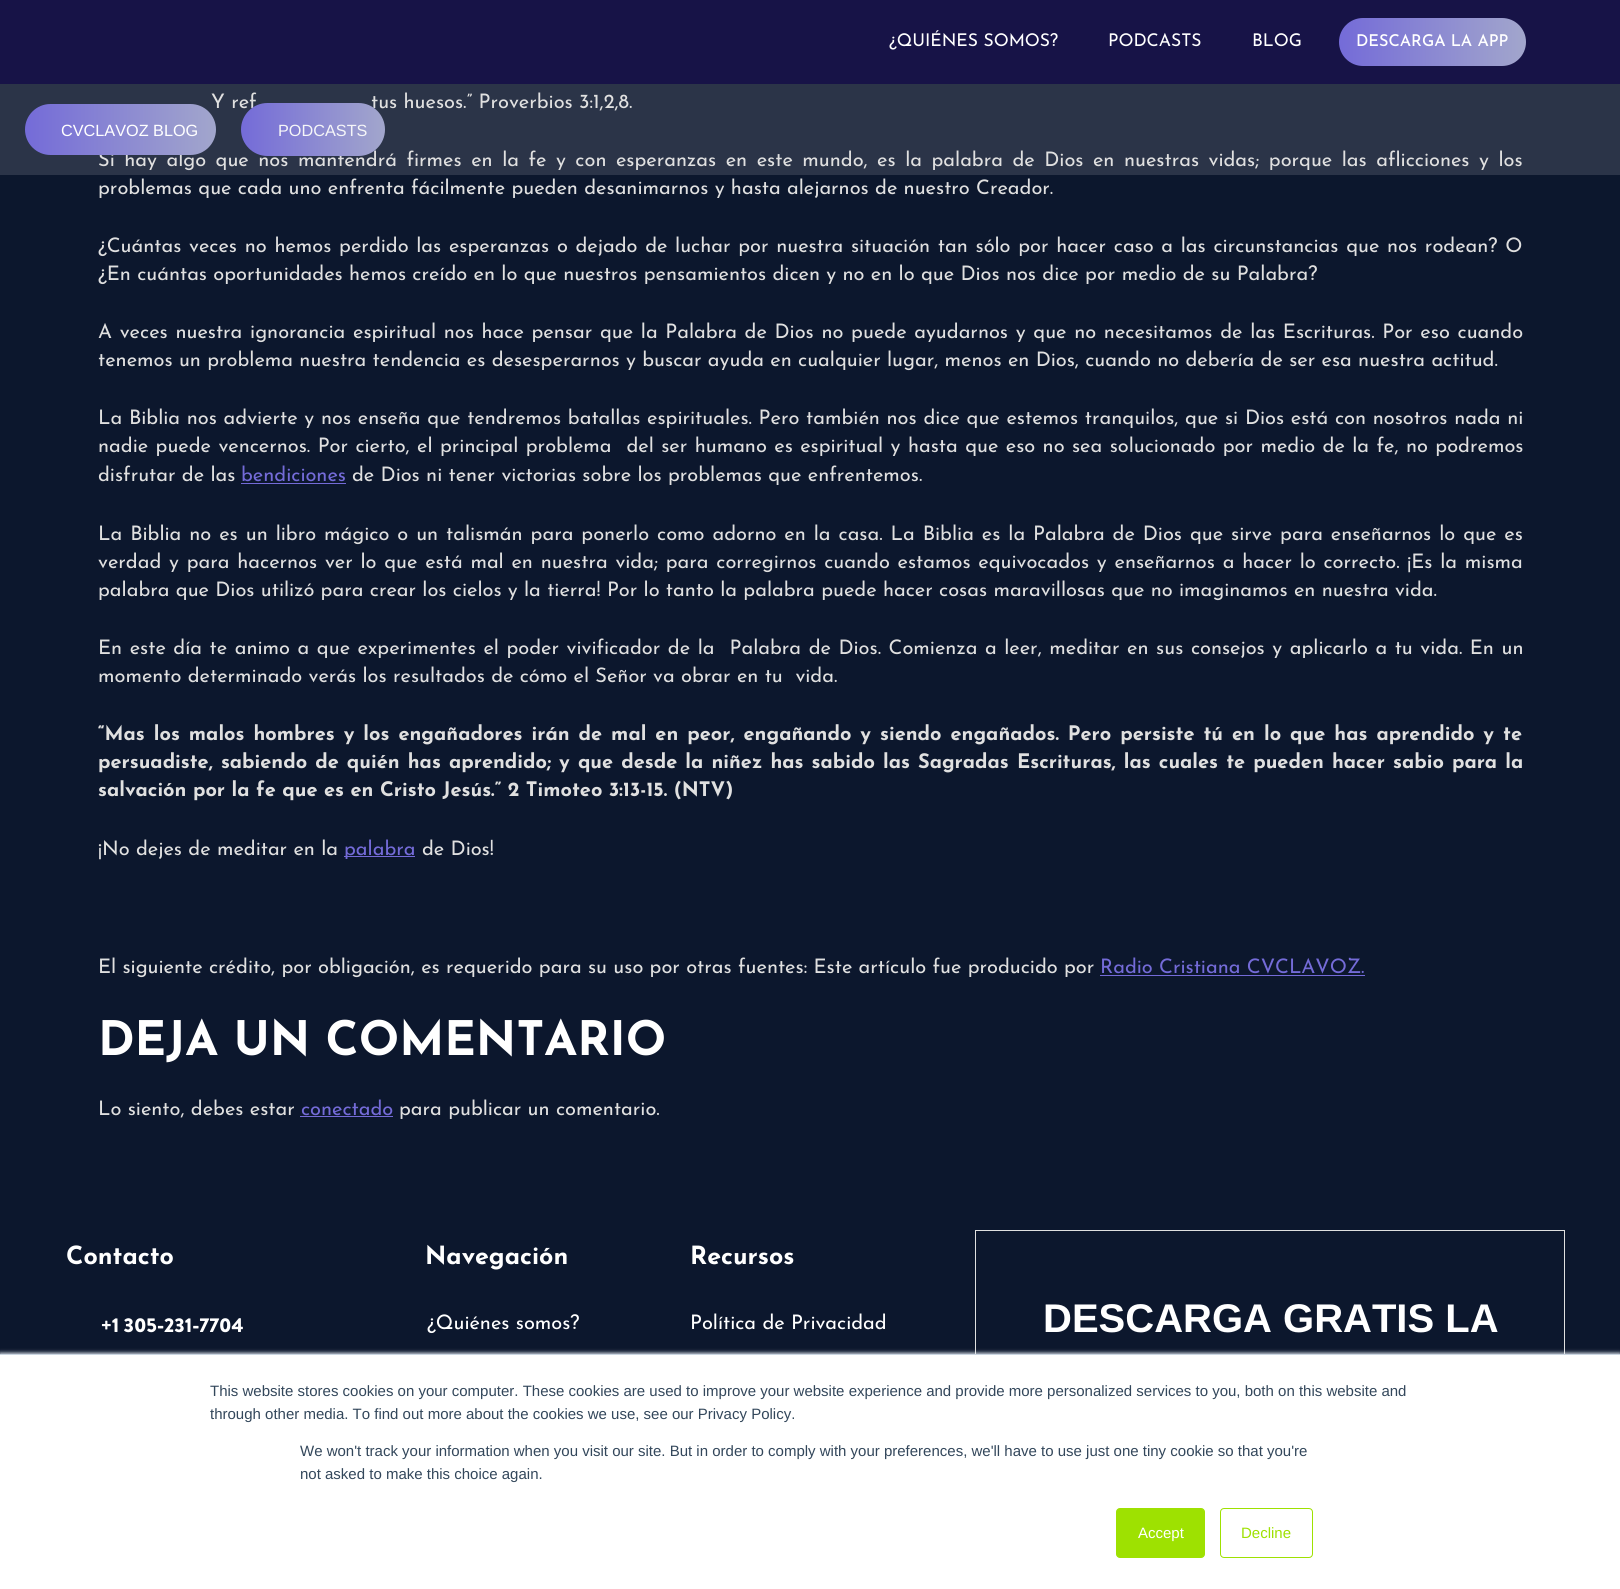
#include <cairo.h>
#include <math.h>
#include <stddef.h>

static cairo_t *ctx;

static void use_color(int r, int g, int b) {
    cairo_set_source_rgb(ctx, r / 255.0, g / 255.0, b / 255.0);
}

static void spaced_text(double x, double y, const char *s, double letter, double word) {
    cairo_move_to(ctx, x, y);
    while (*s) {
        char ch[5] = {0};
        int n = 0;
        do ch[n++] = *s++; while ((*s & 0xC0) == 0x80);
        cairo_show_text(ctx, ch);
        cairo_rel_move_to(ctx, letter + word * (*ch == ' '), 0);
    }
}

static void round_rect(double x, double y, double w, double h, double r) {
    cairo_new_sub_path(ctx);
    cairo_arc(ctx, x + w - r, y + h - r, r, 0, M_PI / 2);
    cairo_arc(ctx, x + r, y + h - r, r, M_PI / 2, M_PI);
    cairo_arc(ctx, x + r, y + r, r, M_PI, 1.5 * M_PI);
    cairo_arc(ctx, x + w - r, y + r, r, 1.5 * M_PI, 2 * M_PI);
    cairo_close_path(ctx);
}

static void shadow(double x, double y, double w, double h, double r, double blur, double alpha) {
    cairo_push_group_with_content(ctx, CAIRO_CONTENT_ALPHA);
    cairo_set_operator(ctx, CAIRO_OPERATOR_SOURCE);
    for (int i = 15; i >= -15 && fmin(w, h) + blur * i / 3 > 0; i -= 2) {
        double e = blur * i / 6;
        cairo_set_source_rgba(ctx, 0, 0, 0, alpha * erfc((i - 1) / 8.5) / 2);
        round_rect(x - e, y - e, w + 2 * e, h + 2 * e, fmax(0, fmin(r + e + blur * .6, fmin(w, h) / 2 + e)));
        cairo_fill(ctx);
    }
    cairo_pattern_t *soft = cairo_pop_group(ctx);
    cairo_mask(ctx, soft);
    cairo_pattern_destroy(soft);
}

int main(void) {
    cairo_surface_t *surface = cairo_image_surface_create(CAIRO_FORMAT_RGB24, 1620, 1589);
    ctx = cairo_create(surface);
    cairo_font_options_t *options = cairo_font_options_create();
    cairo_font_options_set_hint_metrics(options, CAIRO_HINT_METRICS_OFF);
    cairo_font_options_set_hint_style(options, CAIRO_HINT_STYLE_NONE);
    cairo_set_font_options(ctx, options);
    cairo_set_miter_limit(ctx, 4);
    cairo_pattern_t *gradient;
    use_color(12, 23, 45);
    cairo_paint(ctx);
    use_color(23, 19, 71);
    cairo_rectangle(ctx, 0, 0, 1620, 84);
    cairo_fill(ctx);
    cairo_select_font_face(ctx, "Josefin Sans", CAIRO_FONT_SLANT_NORMAL, CAIRO_FONT_WEIGHT_NORMAL);
    cairo_set_font_size(ctx, 17.5);
    use_color(255, 255, 255);
    cairo_move_to(ctx, 889, 46);
    cairo_show_text(ctx, "¿QUIÉNES SOMOS?");
    cairo_move_to(ctx, 1108, 46);
    cairo_show_text(ctx, "PODCASTS");
    cairo_move_to(ctx, 1252, 46);
    cairo_show_text(ctx, "BLOG");
    gradient = cairo_pattern_create_linear(1339, 42, 1526, 42);
    cairo_pattern_add_color_stop_rgba(gradient, 0, 0.455, 0.42, 0.847, 1);
    cairo_pattern_add_color_stop_rgba(gradient, 1, 0.635, 0.651, 0.8, 1);
    cairo_set_source(ctx, gradient);
    cairo_pattern_destroy(gradient);
    round_rect(1339, 18, 187, 48, 24);
    cairo_fill(ctx);
    cairo_select_font_face(ctx, "Josefin Sans Medium", CAIRO_FONT_SLANT_NORMAL, CAIRO_FONT_WEIGHT_NORMAL);
    cairo_set_font_size(ctx, 16.25);
    use_color(255, 255, 255);
    cairo_move_to(ctx, 1356, 46);
    cairo_show_text(ctx, "DESCARGA LA APP");
    cairo_set_source_rgba(ctx, 0.992, 0.988, 1, 0.13);
    cairo_rectangle(ctx, 0, 84, 1620, 91);
    cairo_fill(ctx);
    cairo_select_font_face(ctx, "Josefin Sans", CAIRO_FONT_SLANT_NORMAL, CAIRO_FONT_WEIGHT_NORMAL);
    cairo_set_font_size(ctx, 20);
    use_color(224, 224, 224);
    cairo_move_to(ctx, 211, 108);
    cairo_show_text(ctx, "Y ref");
    spaced_text(98, 166, "Si hay algo que nos mantendrá firmes en la fe y con esperanzas en este mundo, es la palabra de Dios en nuestras vidas; porque las aflicciones y los", 0, 3.2);
    gradient = cairo_pattern_create_linear(25, 129, 216, 129);
    cairo_pattern_add_color_stop_rgba(gradient, 0, 0.455, 0.42, 0.847, 1);
    cairo_pattern_add_color_stop_rgba(gradient, 1, 0.635, 0.651, 0.8, 1);
    cairo_set_source(ctx, gradient);
    cairo_pattern_destroy(gradient);
    round_rect(25, 104, 191, 51, 25.5);
    cairo_fill(ctx);
    cairo_select_font_face(ctx, "Liberation Sans", CAIRO_FONT_SLANT_NORMAL, CAIRO_FONT_WEIGHT_NORMAL);
    cairo_set_font_size(ctx, 16.25);
    use_color(255, 255, 255);
    cairo_move_to(ctx, 61, 136);
    cairo_show_text(ctx, "CVCLAVOZ BLOG");
    cairo_select_font_face(ctx, "Josefin Sans", CAIRO_FONT_SLANT_NORMAL, CAIRO_FONT_WEIGHT_NORMAL);
    cairo_set_font_size(ctx, 20);
    use_color(224, 224, 224);
    cairo_move_to(ctx, 371, 108);
    cairo_show_text(ctx, "tus huesos.” Proverbios 3:1,2,8.");
    gradient = cairo_pattern_create_linear(241, 129, 385, 129);
    cairo_pattern_add_color_stop_rgba(gradient, 0, 0.455, 0.42, 0.847, 1);
    cairo_pattern_add_color_stop_rgba(gradient, 1, 0.635, 0.651, 0.8, 1);
    cairo_set_source(ctx, gradient);
    cairo_pattern_destroy(gradient);
    round_rect(241, 103, 144, 53, 26.5);
    cairo_fill(ctx);
    cairo_select_font_face(ctx, "Liberation Sans", CAIRO_FONT_SLANT_NORMAL, CAIRO_FONT_WEIGHT_NORMAL);
    cairo_set_font_size(ctx, 16.25);
    use_color(245, 246, 248);
    cairo_move_to(ctx, 278, 136);
    cairo_show_text(ctx, "PODCASTS");
    cairo_select_font_face(ctx, "Josefin Sans", CAIRO_FONT_SLANT_NORMAL, CAIRO_FONT_WEIGHT_NORMAL);
    cairo_set_font_size(ctx, 20);
    use_color(224, 224, 224);
    cairo_move_to(ctx, 98, 194);
    cairo_show_text(ctx, "problemas que cada uno enfrenta fácilmente pueden desanimarnos y hasta alejarnos de nuestro Creador.");
    spaced_text(98, 252, "¿Cuántas veces no hemos perdido las esperanzas o dejado de luchar por nuestra situación tan sólo por hacer caso a las circunstancias que nos rodean? O", 0, 1.4);
    cairo_move_to(ctx, 98, 280);
    cairo_show_text(ctx, "¿En cuántas oportunidades hemos creído en lo que nuestros pensamientos dicen y no en lo que Dios nos dice por medio de su Palabra?");
    spaced_text(98, 338, "A veces nuestra ignorancia espiritual nos hace pensar que la Palabra de Dios no puede ayudarnos y que no necesitamos de las Escrituras. Por eso cuando", 0, 1.4);
    cairo_move_to(ctx, 98, 366);
    cairo_show_text(ctx, "tenemos un problema nuestra tendencia es desesperarnos y buscar ayuda en cualquier lugar, menos en Dios, cuando no debería de ser esa nuestra actitud.");
    spaced_text(98, 424, "La Biblia nos advierte y nos enseña que tendremos batallas espirituales. Pero también nos dice que estemos tranquilos, que si Dios está con nosotros nada ni", 0, 0.4);
    spaced_text(98, 452, "nadie puede vencernos. Por cierto, el principal problema  del ser humano es espiritual y hasta que eso no sea solucionado por medio de la fe, no podremos", 0, 1.1);
    cairo_move_to(ctx, 98, 481);
    cairo_show_text(ctx, "disfrutar de las");
    use_color(116, 107, 216);
    cairo_move_to(ctx, 241, 481);
    cairo_show_text(ctx, "bendiciones");
    cairo_rectangle(ctx, 241, 483, 105, 1);
    cairo_fill(ctx);
    use_color(224, 224, 224);
    cairo_move_to(ctx, 352, 481);
    cairo_show_text(ctx, "de Dios ni tener victorias sobre los problemas que enfrentemos.");
    spaced_text(98, 540, "La Biblia no es un libro mágico o un talismán para ponerlo como adorno en la casa. La Biblia es la Palabra de Dios que sirve para enseñarnos lo que es", 0, 1.65);
    spaced_text(98, 568, "verdad y para hacernos ver lo que está mal en nuestra vida; para corregirnos cuando estamos equivocados y enseñarnos a hacer lo correcto. ¡Es la misma", 0, 1.45);
    cairo_move_to(ctx, 98, 596);
    cairo_show_text(ctx, "palabra que Dios utilizó para crear los cielos y la tierra! Por lo tanto la palabra puede hacer cosas maravillosas que no imaginamos en nuestra vida.");
    spaced_text(98, 654, "En este día te animo a que experimentes el poder vivificador de la  Palabra de Dios. Comienza a leer, meditar en sus consejos y aplicarlo a tu vida. En un", 0, 1.25);
    cairo_move_to(ctx, 98, 682);
    cairo_show_text(ctx, "momento determinado verás los resultados de cómo el Señor va obrar en tu  vida.");
    cairo_select_font_face(ctx, "Josefin Sans", CAIRO_FONT_SLANT_NORMAL, CAIRO_FONT_WEIGHT_BOLD);
    spaced_text(98, 740, "“Mas los malos hombres y los engañadores irán de mal en peor, engañando y siendo engañados. Pero persiste tú en lo que has aprendido y te", 0, 2.5);
    spaced_text(98, 768, "persuadiste, sabiendo de quién has aprendido; y que desde la niñez has sabido las Sagradas Escrituras, las cuales te pueden hacer sabio para la", 0, 1.6);
    cairo_move_to(ctx, 98, 796);
    cairo_show_text(ctx, "salvación por la fe que es en Cristo Jesús.” 2 Timoteo 3:13-15. (NTV)");
    cairo_select_font_face(ctx, "Josefin Sans", CAIRO_FONT_SLANT_NORMAL, CAIRO_FONT_WEIGHT_NORMAL);
    cairo_move_to(ctx, 98, 855);
    cairo_show_text(ctx, "¡No dejes de meditar en la");
    use_color(116, 107, 216);
    cairo_rectangle(ctx, 344, 856, 71, 1);
    cairo_fill(ctx);
    cairo_move_to(ctx, 344, 855);
    cairo_show_text(ctx, "palabra");
    use_color(224, 224, 224);
    cairo_move_to(ctx, 422, 855);
    cairo_show_text(ctx, "de Dios!");
    cairo_move_to(ctx, 98, 973);
    cairo_show_text(ctx, "El siguiente crédito, por obligación, es requerido para su uso por otras fuentes: Este artículo fue producido por");
    use_color(116, 107, 216);
    cairo_move_to(ctx, 1100, 973);
    cairo_show_text(ctx, "Radio Cristiana CVCLAVOZ.");
    cairo_rectangle(ctx, 1100, 975, 265, 1);
    cairo_fill(ctx);
    cairo_select_font_face(ctx, "Josefin Sans", CAIRO_FONT_SLANT_NORMAL, CAIRO_FONT_WEIGHT_BOLD);
    cairo_set_font_size(ctx, 47.5);
    use_color(255, 255, 255);
    cairo_move_to(ctx, 98, 1055);
    cairo_show_text(ctx, "DEJA UN COMENTARIO");
    cairo_select_font_face(ctx, "Josefin Sans", CAIRO_FONT_SLANT_NORMAL, CAIRO_FONT_WEIGHT_NORMAL);
    cairo_set_font_size(ctx, 20);
    use_color(224, 224, 224);
    cairo_move_to(ctx, 98, 1115);
    cairo_show_text(ctx, "Lo siento, debes estar");
    use_color(116, 107, 216);
    cairo_move_to(ctx, 301, 1115);
    cairo_show_text(ctx, "conectado");
    cairo_rectangle(ctx, 300, 1116, 93, 1);
    cairo_fill(ctx);
    use_color(224, 224, 224);
    cairo_move_to(ctx, 399, 1115);
    cairo_show_text(ctx, "para publicar un comentario.");
    cairo_select_font_face(ctx, "Josefin Sans", CAIRO_FONT_SLANT_NORMAL, CAIRO_FONT_WEIGHT_BOLD);
    cairo_set_font_size(ctx, 25);
    use_color(255, 255, 255);
    cairo_move_to(ctx, 66, 1264);
    cairo_show_text(ctx, "Contacto");
    cairo_select_font_face(ctx, "Brandon Grotesque Black", CAIRO_FONT_SLANT_NORMAL, CAIRO_FONT_WEIGHT_NORMAL);
    cairo_set_font_size(ctx, 20);
    cairo_move_to(ctx, 101, 1332);
    cairo_show_text(ctx, "+1 305-231-7704");
    cairo_select_font_face(ctx, "Josefin Sans", CAIRO_FONT_SLANT_NORMAL, CAIRO_FONT_WEIGHT_BOLD);
    cairo_set_font_size(ctx, 25);
    cairo_move_to(ctx, 425, 1264);
    cairo_show_text(ctx, "Navegación");
    cairo_select_font_face(ctx, "Josefin Sans", CAIRO_FONT_SLANT_NORMAL, CAIRO_FONT_WEIGHT_NORMAL);
    cairo_set_font_size(ctx, 20);
    cairo_move_to(ctx, 427, 1329);
    cairo_show_text(ctx, "¿Quiénes somos?");
    cairo_select_font_face(ctx, "Josefin Sans", CAIRO_FONT_SLANT_NORMAL, CAIRO_FONT_WEIGHT_BOLD);
    cairo_set_font_size(ctx, 25);
    cairo_move_to(ctx, 690, 1264);
    cairo_show_text(ctx, "Recursos");
    cairo_select_font_face(ctx, "Josefin Sans", CAIRO_FONT_SLANT_NORMAL, CAIRO_FONT_WEIGHT_NORMAL);
    cairo_set_font_size(ctx, 20);
    cairo_move_to(ctx, 690, 1329);
    cairo_show_text(ctx, "Política de Privacidad");
    cairo_rectangle(ctx, 975.5, 1230.5, 589, 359);
    use_color(224, 224, 224);
    cairo_set_line_width(ctx, 1);
    cairo_stroke(ctx);
    cairo_select_font_face(ctx, "Liberation Sans", CAIRO_FONT_SLANT_NORMAL, CAIRO_FONT_WEIGHT_BOLD);
    cairo_set_font_size(ctx, 40);
    use_color(255, 255, 255);
    cairo_move_to(ctx, 1043, 1332);
    cairo_show_text(ctx, "DESCARGA GRATIS LA");
    use_color(234, 240, 246);
    shadow(0, 1353, 1620, 236, 0, 2, 1);
    use_color(255, 255, 255);
    cairo_rectangle(ctx, 0, 1355, 1620, 234);
    cairo_fill(ctx);
    use_color(203, 214, 226);
    cairo_rectangle(ctx, 0, 1354, 1620, 1);
    cairo_fill(ctx);
    cairo_select_font_face(ctx, "Liberation Sans", CAIRO_FONT_SLANT_NORMAL, CAIRO_FONT_WEIGHT_NORMAL);
    cairo_set_font_size(ctx, 15);
    use_color(51, 71, 91);
    cairo_move_to(ctx, 210, 1396);
    cairo_show_text(ctx, "This website stores cookies on your computer. These cookies are used to improve your website experience and provide more personalized services to you, both on this website and");
    cairo_move_to(ctx, 210, 1419);
    cairo_show_text(ctx, "through other media. To find out more about the cookies we use, see our Privacy Policy.");
    cairo_move_to(ctx, 300, 1456);
    cairo_show_text(ctx, "We won't track your information when you visit our site. But in order to comply with your preferences, we'll have to use just one tiny cookie so that you're");
    cairo_move_to(ctx, 300, 1479);
    cairo_show_text(ctx, "not asked to make this choice again.");
    use_color(158, 225, 1);
    round_rect(1116.5, 1508.5, 88, 49, 3.5);
    cairo_fill_preserve(ctx);
    cairo_stroke(ctx);
    use_color(255, 255, 255);
    cairo_move_to(ctx, 1138, 1538);
    cairo_show_text(ctx, "Accept");
    round_rect(1220.5, 1508.5, 92, 49, 3.5);
    use_color(158, 225, 1);
    cairo_stroke(ctx);
    cairo_move_to(ctx, 1241, 1538);
    cairo_show_text(ctx, "Decline");
    cairo_surface_write_to_png(surface, "result.png");
    cairo_font_options_destroy(options);
    cairo_destroy(ctx);
    cairo_surface_destroy(surface);
    return 0;
}
